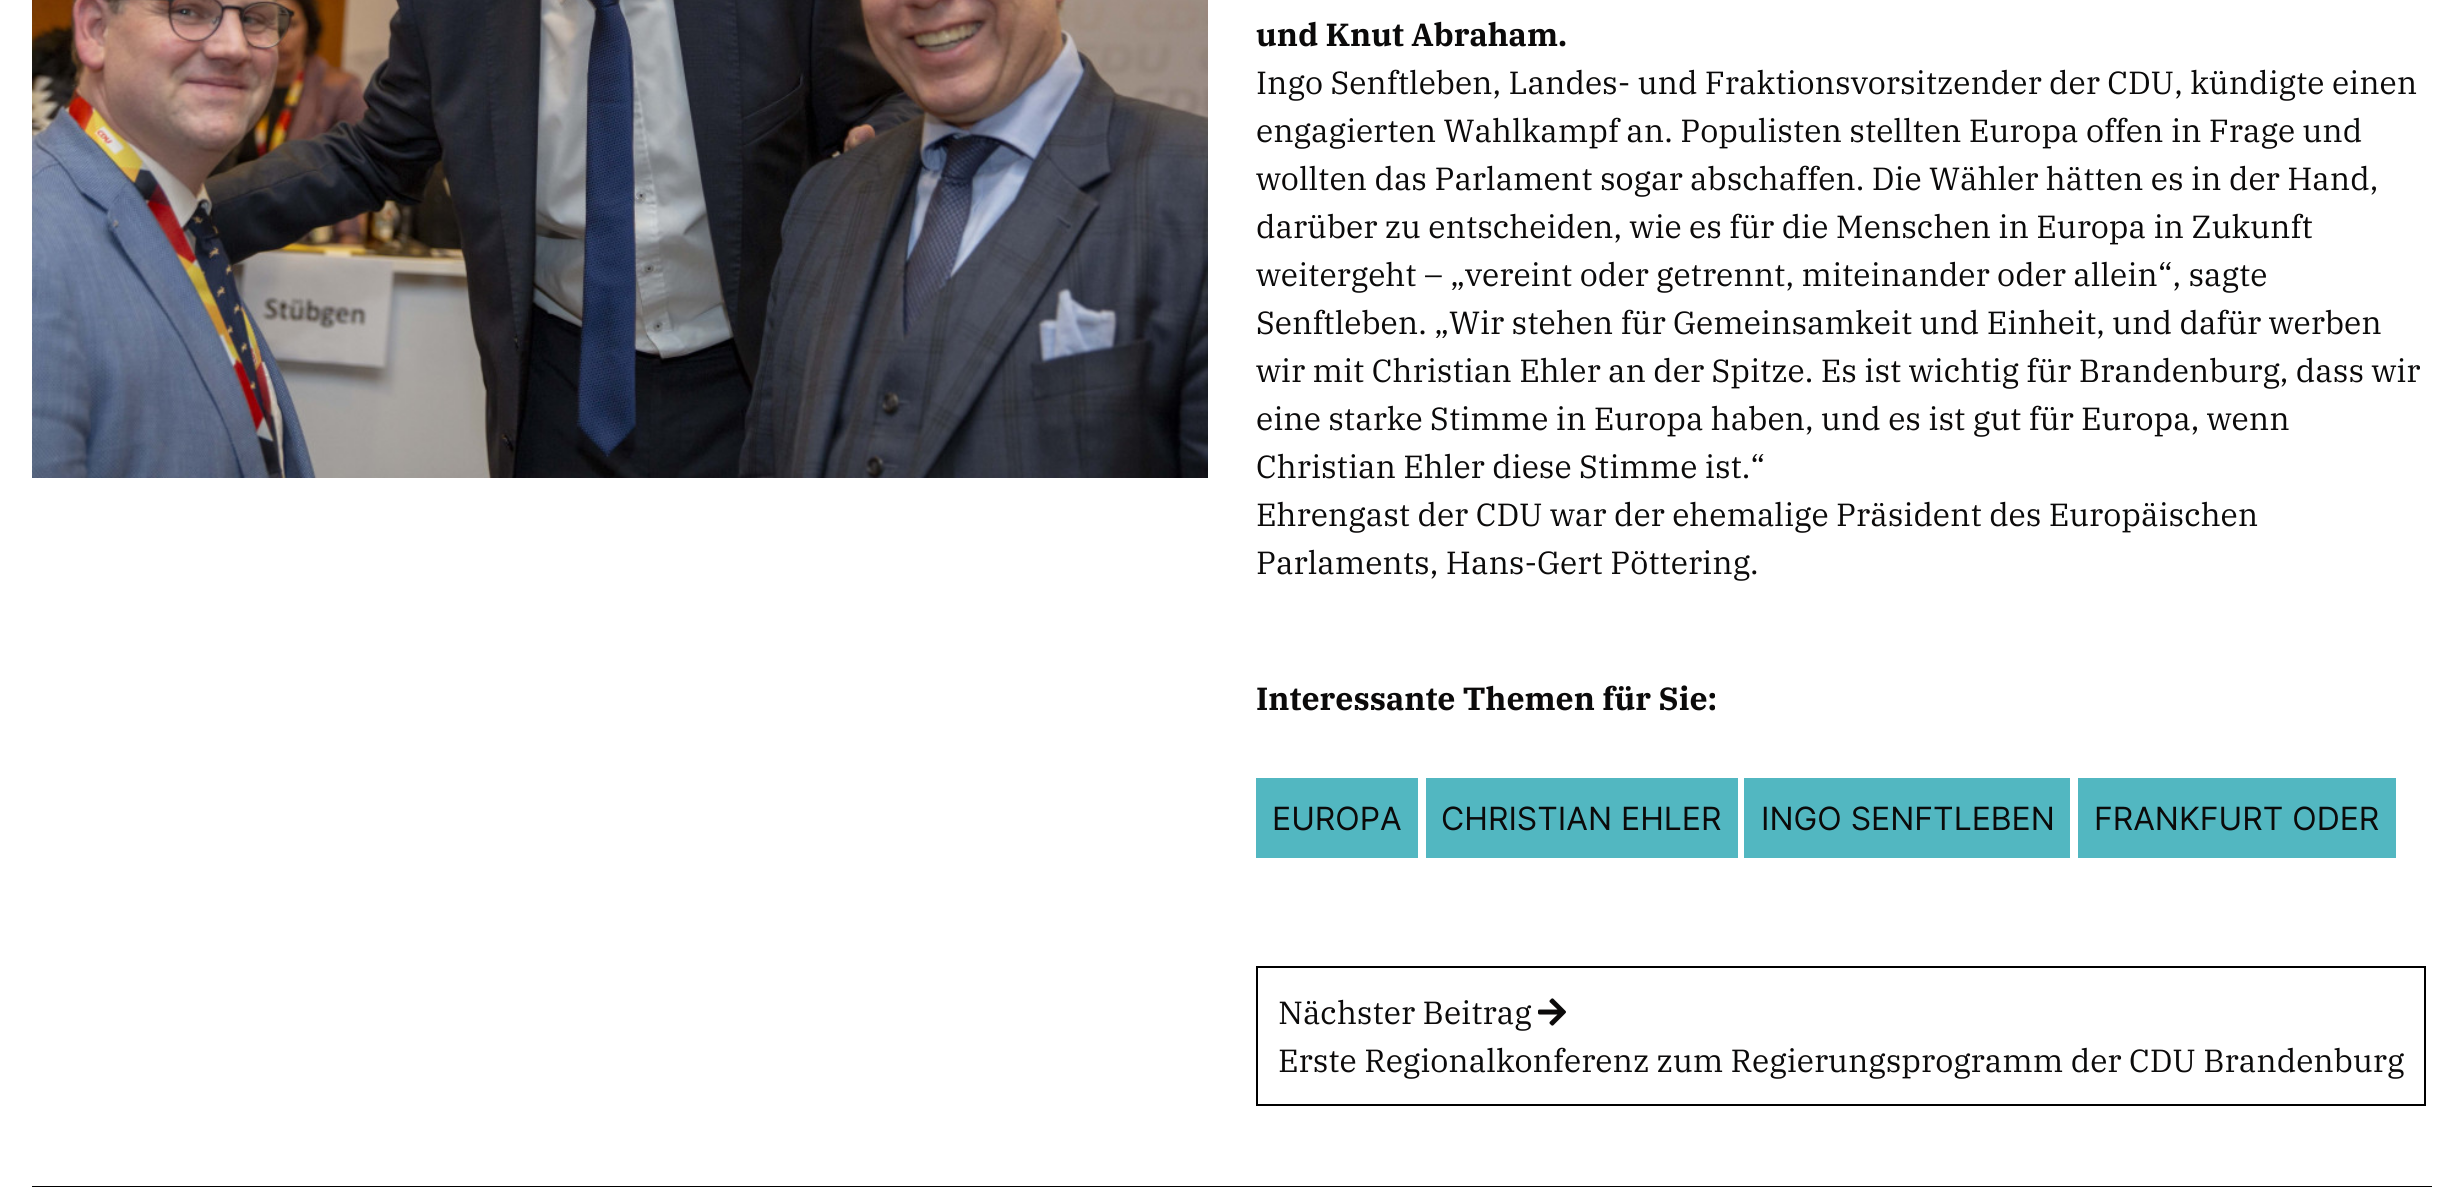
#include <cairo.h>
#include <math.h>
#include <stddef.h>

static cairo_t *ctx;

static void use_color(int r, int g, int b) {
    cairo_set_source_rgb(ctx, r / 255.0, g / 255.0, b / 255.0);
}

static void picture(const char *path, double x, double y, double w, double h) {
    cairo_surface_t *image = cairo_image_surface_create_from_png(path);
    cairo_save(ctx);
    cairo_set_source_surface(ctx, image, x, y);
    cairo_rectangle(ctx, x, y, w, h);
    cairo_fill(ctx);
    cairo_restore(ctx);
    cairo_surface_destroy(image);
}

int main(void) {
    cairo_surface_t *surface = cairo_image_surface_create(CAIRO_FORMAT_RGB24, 2464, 1187);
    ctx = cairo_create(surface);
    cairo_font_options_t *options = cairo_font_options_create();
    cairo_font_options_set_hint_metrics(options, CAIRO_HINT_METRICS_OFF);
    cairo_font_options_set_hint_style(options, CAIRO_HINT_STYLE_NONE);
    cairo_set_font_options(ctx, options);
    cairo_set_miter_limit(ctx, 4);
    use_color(255, 255, 255);
    cairo_paint(ctx);
    use_color(0, 0, 0);
    cairo_rectangle(ctx, 32, 1186, 2400, 1);
    cairo_fill(ctx);
    picture("img1.png", 32, 0, 1176, 478);
    cairo_select_font_face(ctx, "IBM Plex Serif", CAIRO_FONT_SLANT_NORMAL, CAIRO_FONT_WEIGHT_BOLD);
    cairo_set_font_size(ctx, 32);
    use_color(11, 10, 10);
    cairo_move_to(ctx, 1256, 46);
    cairo_show_text(ctx, "und Knut Abraham.");
    cairo_select_font_face(ctx, "IBM Plex Serif", CAIRO_FONT_SLANT_NORMAL, CAIRO_FONT_WEIGHT_NORMAL);
    cairo_move_to(ctx, 1256, 94);
    cairo_show_text(ctx, "Ingo Senftleben, Landes- und Fraktionsvorsitzender der CDU, kündigte einen");
    cairo_move_to(ctx, 1256, 142);
    cairo_show_text(ctx, "engagierten Wahlkampf an. Populisten stellten Europa offen in Frage und");
    cairo_move_to(ctx, 1256, 190);
    cairo_show_text(ctx, "wollten das Parlament sogar abschaffen. Die Wähler hätten es in der Hand,");
    cairo_move_to(ctx, 1256, 238);
    cairo_show_text(ctx, "darüber zu entscheiden, wie es für die Menschen in Europa in Zukunft");
    cairo_move_to(ctx, 1256, 286);
    cairo_show_text(ctx, "weitergeht – „vereint oder getrennt, miteinander oder allein“, sagte");
    cairo_move_to(ctx, 1256, 334);
    cairo_show_text(ctx, "Senftleben. „Wir stehen für Gemeinsamkeit und Einheit, und dafür werben");
    cairo_move_to(ctx, 1256, 382);
    cairo_show_text(ctx, "wir mit Christian Ehler an der Spitze. Es ist wichtig für Brandenburg, dass wir");
    cairo_move_to(ctx, 1256, 430);
    cairo_show_text(ctx, "eine starke Stimme in Europa haben, und es ist gut für Europa, wenn");
    cairo_move_to(ctx, 1256, 478);
    cairo_show_text(ctx, "Christian Ehler diese Stimme ist.“");
    cairo_move_to(ctx, 1256, 526);
    cairo_show_text(ctx, "Ehrengast der CDU war der ehemalige Präsident des Europäischen");
    cairo_move_to(ctx, 1256, 574);
    cairo_show_text(ctx, "Parlaments, Hans-Gert Pöttering.");
    cairo_select_font_face(ctx, "IBM Plex Serif", CAIRO_FONT_SLANT_NORMAL, CAIRO_FONT_WEIGHT_BOLD);
    cairo_move_to(ctx, 1256, 710);
    cairo_show_text(ctx, "Interessante Themen für Sie:");
    use_color(82, 183, 193);
    cairo_rectangle(ctx, 1256, 778, 162, 80);
    cairo_fill(ctx);
    cairo_select_font_face(ctx, "Inter", CAIRO_FONT_SLANT_NORMAL, CAIRO_FONT_WEIGHT_NORMAL);
    use_color(11, 10, 10);
    cairo_move_to(ctx, 1272, 830);
    cairo_show_text(ctx, "EUROPA");
    use_color(82, 183, 193);
    cairo_rectangle(ctx, 1426, 778, 312, 80);
    cairo_fill(ctx);
    use_color(11, 10, 10);
    cairo_move_to(ctx, 1441, 830);
    cairo_show_text(ctx, "CHRISTIAN EHLER");
    use_color(82, 183, 193);
    cairo_rectangle(ctx, 1744, 778, 326, 80);
    cairo_fill(ctx);
    use_color(11, 10, 10);
    cairo_move_to(ctx, 1761, 830);
    cairo_show_text(ctx, "INGO SENFTLEBEN");
    use_color(82, 183, 193);
    cairo_rectangle(ctx, 2078, 778, 318, 80);
    cairo_fill(ctx);
    use_color(11, 10, 10);
    cairo_move_to(ctx, 2094, 830);
    cairo_show_text(ctx, "FRANKFURT ODER");
    cairo_rectangle(ctx, 1257, 967, 1168, 138);
    use_color(0, 0, 0);
    cairo_stroke(ctx);
    cairo_select_font_face(ctx, "IBM Plex Serif", CAIRO_FONT_SLANT_NORMAL, CAIRO_FONT_WEIGHT_NORMAL);
    use_color(11, 10, 10);
    cairo_move_to(ctx, 1278, 1024);
    cairo_show_text(ctx, "Nächster Beitrag");
    picture("img2.png", 1538, 998, 28, 28);
    cairo_move_to(ctx, 1278, 1072);
    cairo_show_text(ctx, "Erste Regionalkonferenz zum Regierungsprogramm der CDU Brandenburg");
    cairo_surface_write_to_png(surface, "result.png");
    cairo_font_options_destroy(options);
    cairo_destroy(ctx);
    cairo_surface_destroy(surface);
    return 0;
}
